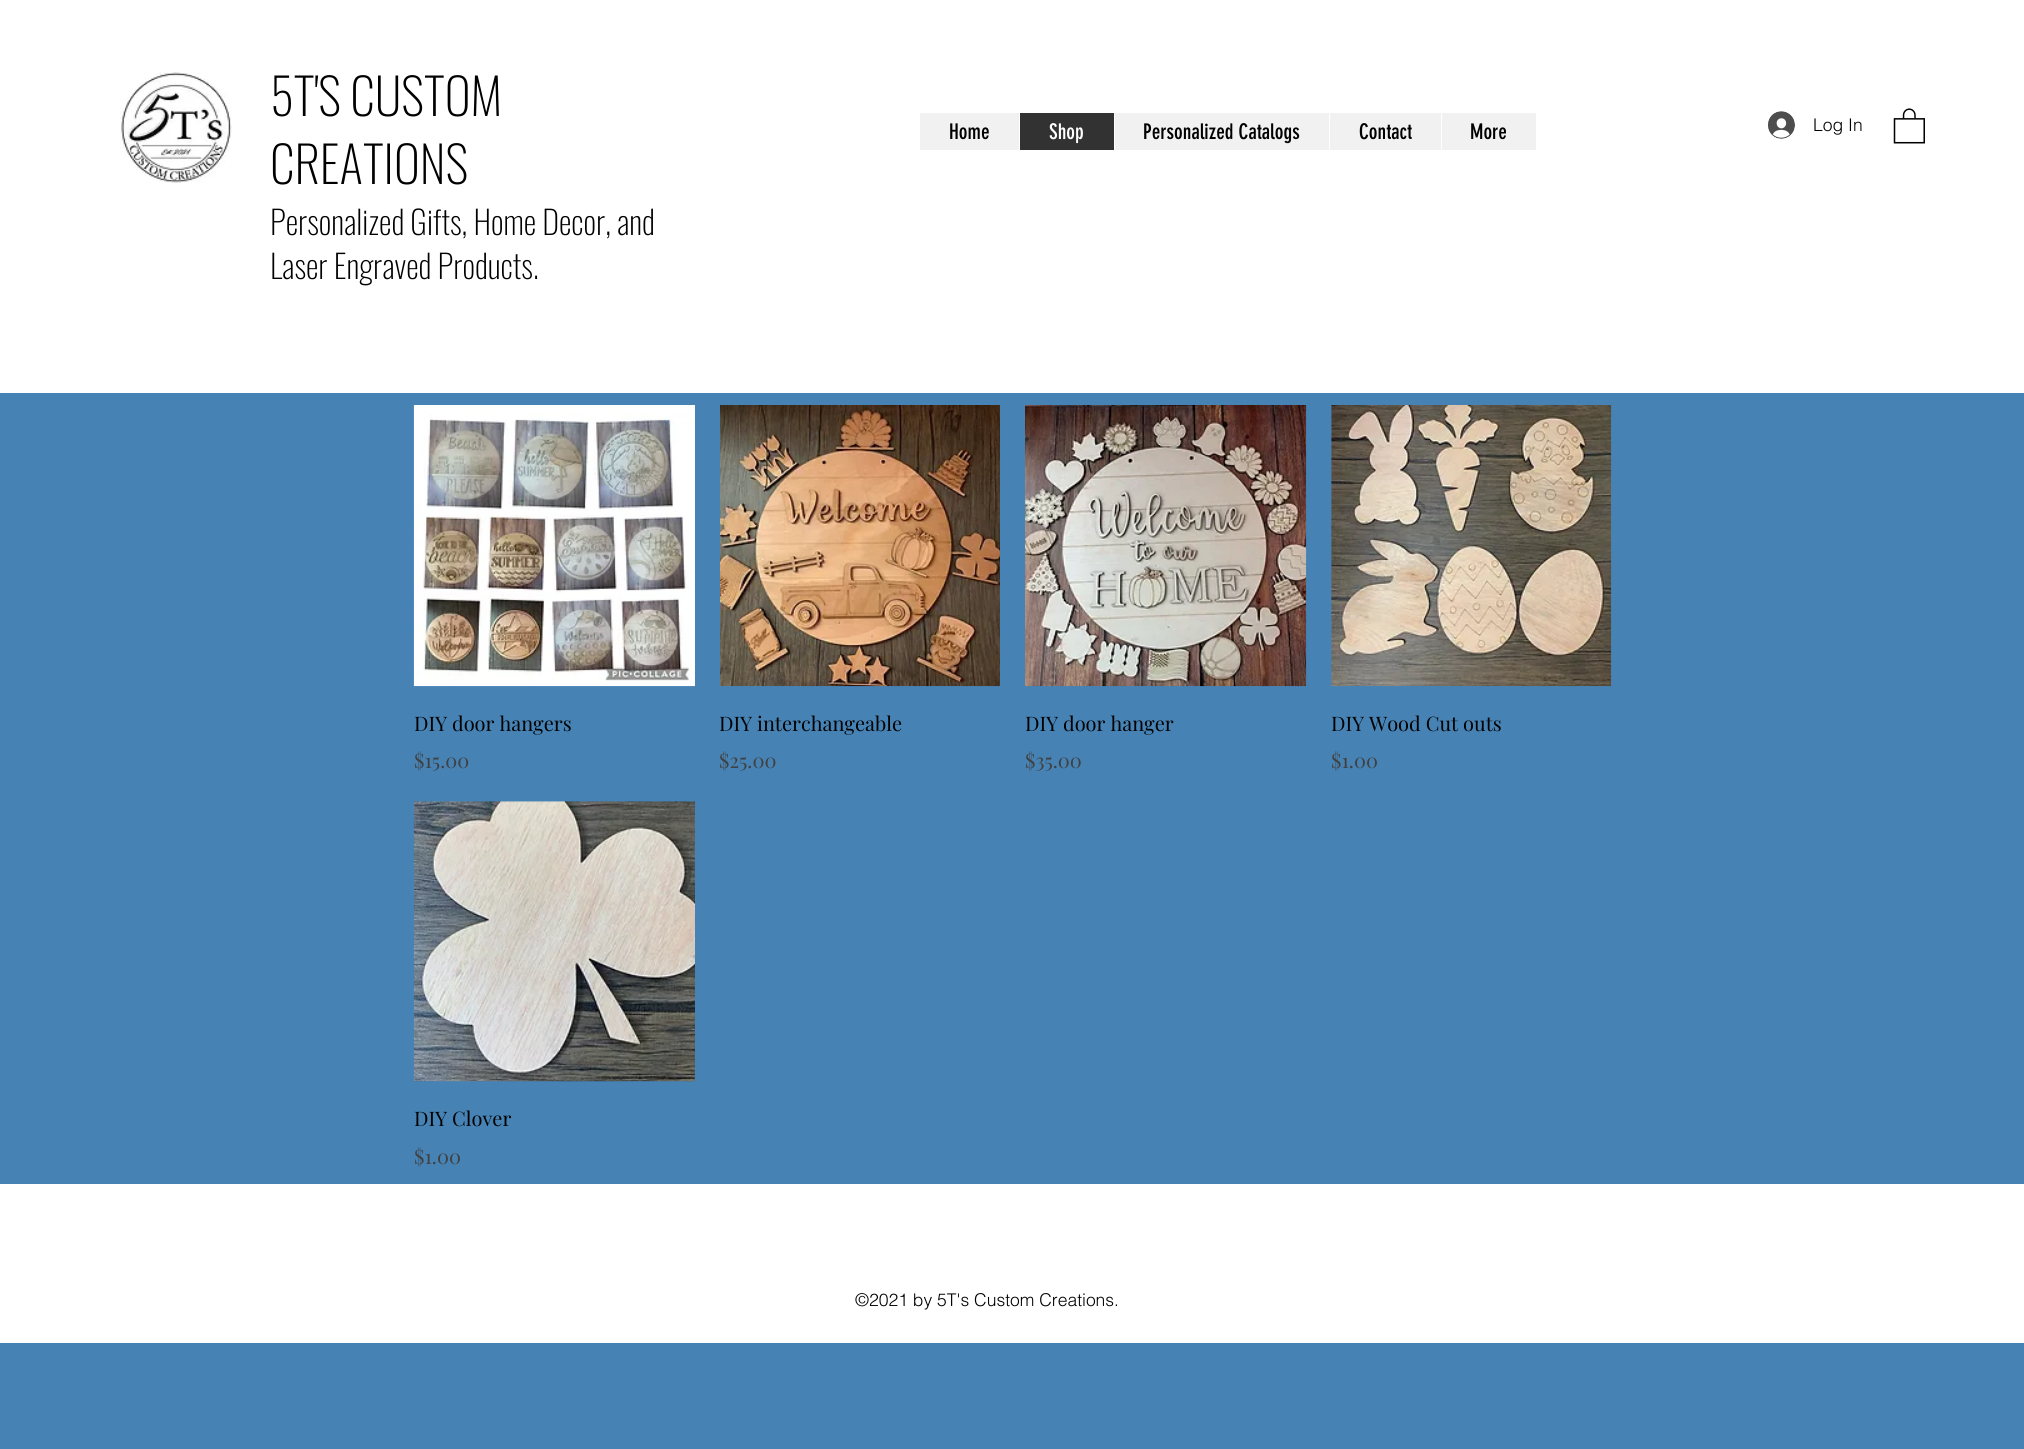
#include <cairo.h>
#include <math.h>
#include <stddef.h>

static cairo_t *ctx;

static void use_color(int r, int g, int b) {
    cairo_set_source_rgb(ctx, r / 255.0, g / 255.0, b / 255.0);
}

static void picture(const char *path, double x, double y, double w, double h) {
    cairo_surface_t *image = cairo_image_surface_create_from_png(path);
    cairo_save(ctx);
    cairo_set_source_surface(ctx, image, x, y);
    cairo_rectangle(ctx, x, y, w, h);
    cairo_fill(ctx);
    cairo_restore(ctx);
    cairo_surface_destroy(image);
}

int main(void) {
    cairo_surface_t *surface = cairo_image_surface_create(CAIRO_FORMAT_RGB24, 2024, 1449);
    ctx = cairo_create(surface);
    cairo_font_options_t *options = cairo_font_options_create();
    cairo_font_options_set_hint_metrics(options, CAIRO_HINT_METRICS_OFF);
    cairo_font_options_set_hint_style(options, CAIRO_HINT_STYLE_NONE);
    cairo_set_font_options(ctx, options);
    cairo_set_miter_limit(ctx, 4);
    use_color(70, 130, 180);
    cairo_paint(ctx);
    use_color(255, 255, 255);
    cairo_rectangle(ctx, 0, 0, 2024, 393);
    cairo_fill(ctx);
    picture("img1.png", 120, 72, 112, 111);
    cairo_select_font_face(ctx, "Oswald ExtraLight", CAIRO_FONT_SLANT_NORMAL, CAIRO_FONT_WEIGHT_NORMAL);
    cairo_set_font_size(ctx, 50);
    use_color(0, 0, 0);
    cairo_move_to(ctx, 270, 116);
    cairo_show_text(ctx, "5T'S CUSTOM");
    cairo_move_to(ctx, 270, 184);
    cairo_show_text(ctx, "CREATIONS");
    cairo_set_font_size(ctx, 32.5);
    cairo_move_to(ctx, 270, 235);
    cairo_show_text(ctx, "Personalized Gifts, Home Decor, and");
    cairo_move_to(ctx, 270, 279);
    cairo_show_text(ctx, "Laser Engraved Products.");
    use_color(241, 241, 241);
    cairo_rectangle(ctx, 920, 113, 616, 37);
    cairo_fill(ctx);
    cairo_select_font_face(ctx, "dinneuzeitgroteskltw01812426", CAIRO_FONT_SLANT_NORMAL, CAIRO_FONT_WEIGHT_NORMAL);
    cairo_set_font_size(ctx, 21.25);
    use_color(0, 0, 0);
    cairo_move_to(ctx, 949, 139);
    cairo_show_text(ctx, "Home");
    use_color(50, 50, 50);
    cairo_rectangle(ctx, 1020, 113, 94, 37);
    cairo_fill(ctx);
    use_color(255, 255, 255);
    cairo_rectangle(ctx, 1019, 113, 1, 37);
    cairo_fill(ctx);
    cairo_move_to(ctx, 1049, 139);
    cairo_show_text(ctx, "Shop");
    cairo_rectangle(ctx, 1114, 113, 1, 37);
    cairo_fill(ctx);
    use_color(0, 0, 0);
    cairo_move_to(ctx, 1143, 139);
    cairo_show_text(ctx, "Personalized Catalogs");
    use_color(255, 255, 255);
    cairo_rectangle(ctx, 1329, 113, 1, 37);
    cairo_fill(ctx);
    use_color(0, 0, 0);
    cairo_move_to(ctx, 1359, 139);
    cairo_show_text(ctx, "Contact");
    use_color(255, 255, 255);
    cairo_rectangle(ctx, 1441, 113, 1, 37);
    cairo_fill(ctx);
    use_color(0, 0, 0);
    cairo_move_to(ctx, 1470, 139);
    cairo_show_text(ctx, "More");
    picture("img2.png", 1768, 111, 27, 28);
    cairo_select_font_face(ctx, "helvetica Light", CAIRO_FONT_SLANT_NORMAL, CAIRO_FONT_WEIGHT_NORMAL);
    cairo_set_font_size(ctx, 17.5);
    cairo_move_to(ctx, 1813, 131);
    cairo_show_text(ctx, "Log In");
    picture("img3.png", 1893, 108, 32, 36);
    picture("img4.png", 413, 405, 282, 282);
    cairo_select_font_face(ctx, "Playfair Display", CAIRO_FONT_SLANT_NORMAL, CAIRO_FONT_WEIGHT_NORMAL);
    cairo_set_font_size(ctx, 20);
    cairo_move_to(ctx, 414, 731);
    cairo_show_text(ctx, "DIY door hangers");
    use_color(64, 64, 64);
    cairo_move_to(ctx, 414, 768);
    cairo_show_text(ctx, "$15.00");
    picture("img5.png", 720, 405, 280, 282);
    use_color(0, 0, 0);
    cairo_move_to(ctx, 719, 731);
    cairo_show_text(ctx, "DIY interchangeable");
    use_color(64, 64, 64);
    cairo_move_to(ctx, 719, 768);
    cairo_show_text(ctx, "$25.00");
    picture("img6.png", 1025, 405, 282, 282);
    use_color(0, 0, 0);
    cairo_move_to(ctx, 1025, 731);
    cairo_show_text(ctx, "DIY door hanger");
    use_color(64, 64, 64);
    cairo_move_to(ctx, 1025, 768);
    cairo_show_text(ctx, "$35.00");
    picture("img7.png", 1331, 405, 281, 282);
    use_color(0, 0, 0);
    cairo_move_to(ctx, 1331, 731);
    cairo_show_text(ctx, "DIY Wood Cut outs");
    use_color(64, 64, 64);
    cairo_move_to(ctx, 1331, 768);
    cairo_show_text(ctx, "$1.00");
    picture("img8.png", 413, 801, 282, 281);
    use_color(0, 0, 0);
    cairo_move_to(ctx, 414, 1126);
    cairo_show_text(ctx, "DIY Clover");
    use_color(64, 64, 64);
    cairo_move_to(ctx, 414, 1164);
    cairo_show_text(ctx, "$1.00");
    use_color(255, 255, 255);
    cairo_rectangle(ctx, 0, 1184, 2024, 159);
    cairo_fill(ctx);
    cairo_select_font_face(ctx, "helvetica Light", CAIRO_FONT_SLANT_NORMAL, CAIRO_FONT_WEIGHT_NORMAL);
    cairo_set_font_size(ctx, 17.5);
    use_color(0, 0, 0);
    cairo_move_to(ctx, 855, 1306);
    cairo_show_text(ctx, "©2021 by 5T's Custom Creations.");
    cairo_surface_write_to_png(surface, "result.png");
    cairo_font_options_destroy(options);
    cairo_destroy(ctx);
    cairo_surface_destroy(surface);
    return 0;
}
